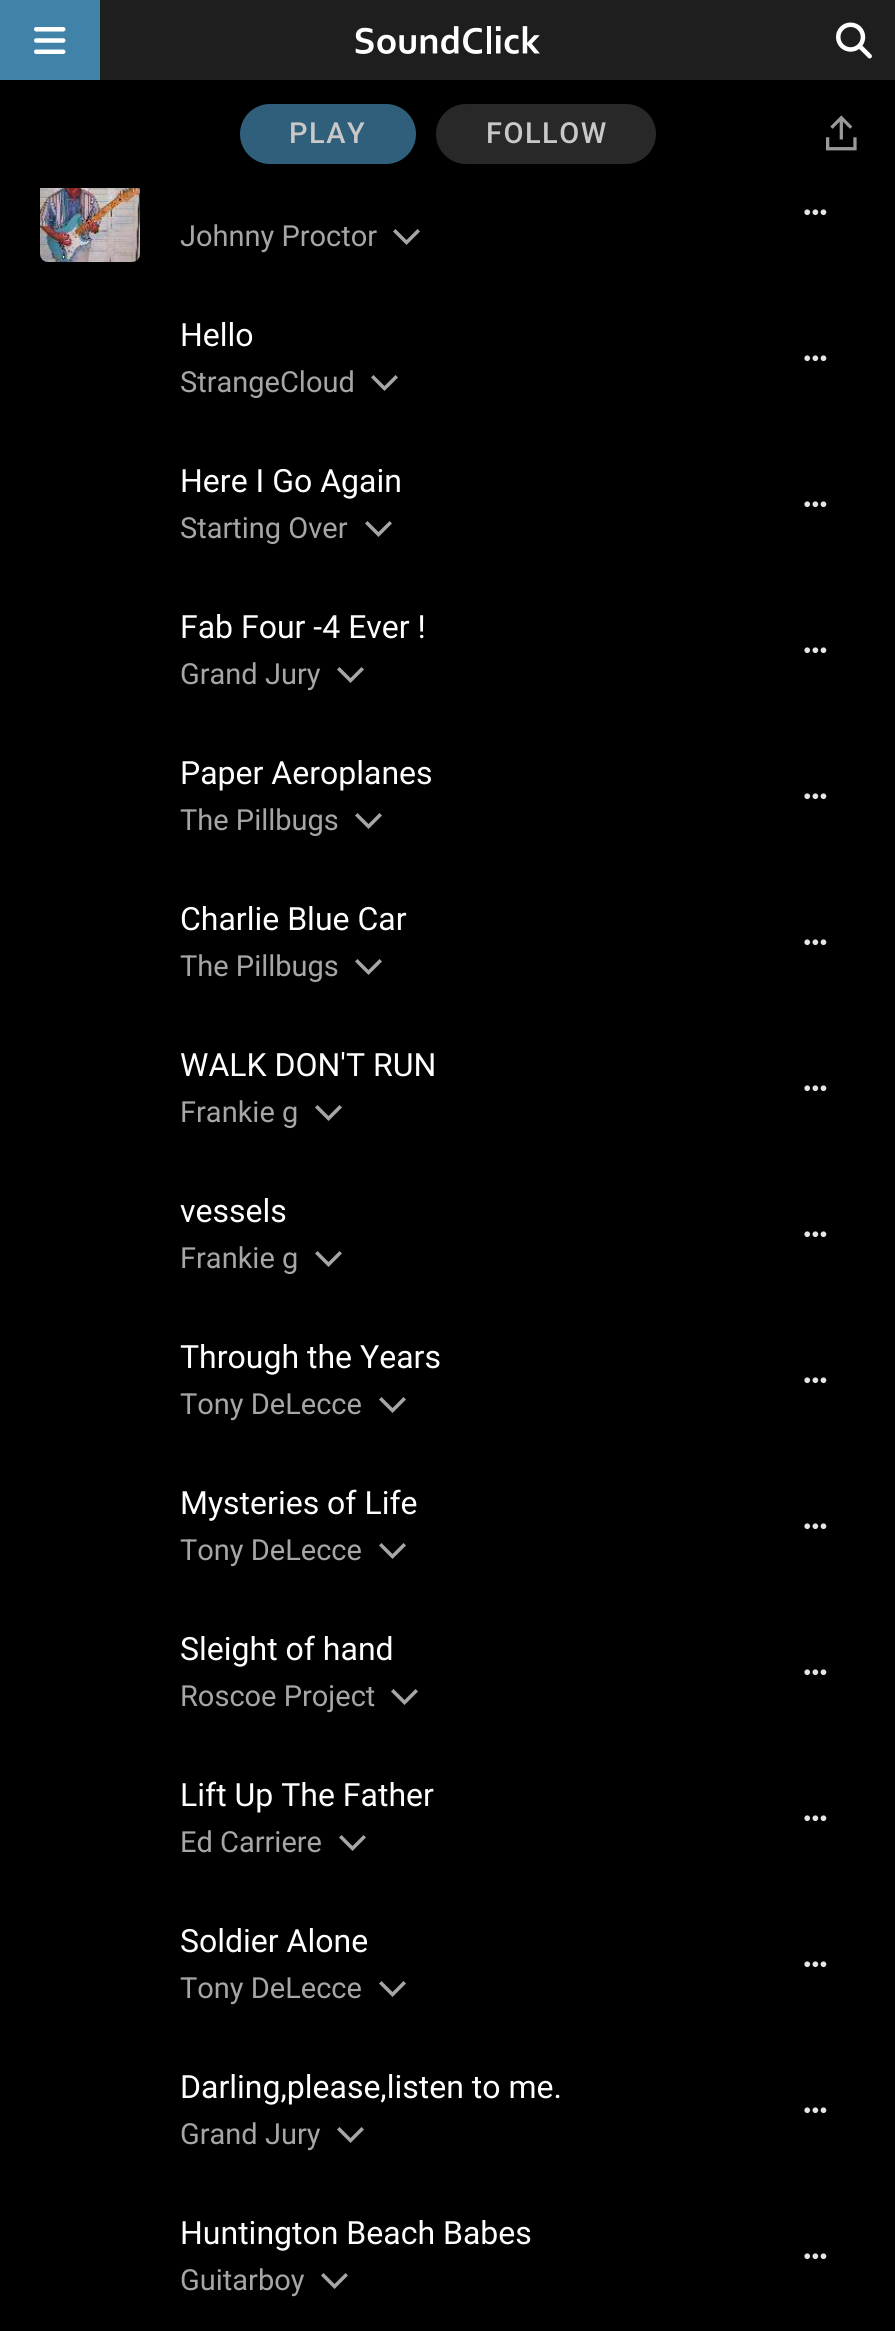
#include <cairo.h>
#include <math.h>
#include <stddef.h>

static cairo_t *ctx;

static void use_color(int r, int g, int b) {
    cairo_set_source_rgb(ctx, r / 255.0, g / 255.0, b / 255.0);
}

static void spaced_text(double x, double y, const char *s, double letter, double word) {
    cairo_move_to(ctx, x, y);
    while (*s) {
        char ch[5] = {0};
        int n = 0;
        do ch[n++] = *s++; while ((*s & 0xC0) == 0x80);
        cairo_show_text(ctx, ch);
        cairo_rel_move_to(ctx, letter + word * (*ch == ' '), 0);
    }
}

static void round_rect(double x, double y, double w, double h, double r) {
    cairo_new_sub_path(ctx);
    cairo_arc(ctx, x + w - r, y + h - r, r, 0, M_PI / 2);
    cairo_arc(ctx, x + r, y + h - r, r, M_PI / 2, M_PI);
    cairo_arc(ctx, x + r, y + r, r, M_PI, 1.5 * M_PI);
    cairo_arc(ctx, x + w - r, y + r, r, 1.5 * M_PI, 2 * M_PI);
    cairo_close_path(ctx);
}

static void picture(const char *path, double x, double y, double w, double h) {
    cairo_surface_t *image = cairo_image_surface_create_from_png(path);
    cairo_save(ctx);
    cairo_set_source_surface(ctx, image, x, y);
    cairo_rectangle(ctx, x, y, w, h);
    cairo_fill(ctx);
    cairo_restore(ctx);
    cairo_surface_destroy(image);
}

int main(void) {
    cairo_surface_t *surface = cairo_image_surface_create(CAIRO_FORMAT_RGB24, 895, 2331);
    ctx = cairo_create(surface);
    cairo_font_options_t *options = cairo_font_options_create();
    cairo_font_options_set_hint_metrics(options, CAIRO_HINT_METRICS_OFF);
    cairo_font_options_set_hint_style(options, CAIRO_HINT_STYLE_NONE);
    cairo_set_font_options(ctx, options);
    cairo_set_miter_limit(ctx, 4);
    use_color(0, 0, 0);
    cairo_paint(ctx);
    use_color(30, 30, 30);
    cairo_rectangle(ctx, 100, 0, 795, 80);
    cairo_fill(ctx);
    use_color(65, 131, 168);
    cairo_rectangle(ctx, 0, 0, 100, 80);
    cairo_fill(ctx);
    picture("img1.png", 34, 27, 32, 27);
    picture("img2.png", 355, 26, 185, 28);
    picture("img3.png", 836, 22, 36, 37);
    use_color(47, 95, 122);
    round_rect(240, 104, 176, 60, 30);
    cairo_fill(ctx);
    cairo_select_font_face(ctx, "Roboto Medium", CAIRO_FONT_SLANT_NORMAL, CAIRO_FONT_WEIGHT_NORMAL);
    cairo_set_font_size(ctx, 29);
    use_color(200, 200, 200);
    spaced_text(289, 143, "PLAY", 1.5, 0);
    use_color(40, 40, 40);
    round_rect(436, 104, 220, 60, 30);
    cairo_fill(ctx);
    use_color(200, 200, 200);
    spaced_text(486, 143, "FOLLOW", 1.5, 0);
    picture("img4.png", 826, 115, 31, 36);
    picture("img5.png", 40, 188, 100, 74);
    picture("img6.png", 804, 209, 23, 7);
    cairo_select_font_face(ctx, "Roboto", CAIRO_FONT_SLANT_NORMAL, CAIRO_FONT_WEIGHT_NORMAL);
    use_color(166, 166, 166);
    cairo_move_to(ctx, 180, 246);
    cairo_show_text(ctx, "Johnny Proctor");
    cairo_new_path(ctx);
    cairo_move_to(ctx, 406.5, 245);
    cairo_line_to(ctx, 420, 231.5);
    cairo_line_to(ctx, 417.5, 229);
    cairo_line_to(ctx, 406.5, 240);
    cairo_line_to(ctx, 395.5, 229);
    cairo_line_to(ctx, 393, 231.5);
    cairo_close_path(ctx);
    cairo_fill(ctx);
    cairo_set_font_size(ctx, 32);
    use_color(255, 255, 255);
    cairo_move_to(ctx, 180, 346);
    cairo_show_text(ctx, "Hello");
    cairo_set_font_size(ctx, 29);
    use_color(166, 166, 166);
    cairo_move_to(ctx, 180, 392);
    cairo_show_text(ctx, "StrangeCloud");
    cairo_new_path(ctx);
    cairo_move_to(ctx, 384.5, 391);
    cairo_line_to(ctx, 398, 377.5);
    cairo_line_to(ctx, 395.5, 375);
    cairo_line_to(ctx, 384.5, 386);
    cairo_line_to(ctx, 373.5, 375);
    cairo_line_to(ctx, 371, 377.5);
    cairo_close_path(ctx);
    cairo_fill(ctx);
    picture("img6.png", 804, 355, 23, 7);
    cairo_set_font_size(ctx, 32);
    use_color(255, 255, 255);
    cairo_move_to(ctx, 180, 492);
    cairo_show_text(ctx, "Here I Go Again");
    cairo_set_font_size(ctx, 29);
    use_color(166, 166, 166);
    cairo_move_to(ctx, 180, 538);
    cairo_show_text(ctx, "Starting Over");
    cairo_new_path(ctx);
    cairo_move_to(ctx, 378.5, 537);
    cairo_line_to(ctx, 392, 523.5);
    cairo_line_to(ctx, 389.5, 521);
    cairo_line_to(ctx, 378.5, 532);
    cairo_line_to(ctx, 367.5, 521);
    cairo_line_to(ctx, 365, 523.5);
    cairo_close_path(ctx);
    cairo_fill(ctx);
    picture("img6.png", 804, 501, 23, 7);
    cairo_set_font_size(ctx, 32);
    use_color(255, 255, 255);
    cairo_move_to(ctx, 180, 638);
    cairo_show_text(ctx, "Fab Four -4 Ever !");
    cairo_set_font_size(ctx, 29);
    use_color(166, 166, 166);
    cairo_move_to(ctx, 180, 684);
    cairo_show_text(ctx, "Grand Jury");
    cairo_new_path(ctx);
    cairo_move_to(ctx, 350.5, 683);
    cairo_line_to(ctx, 364, 669.5);
    cairo_line_to(ctx, 361.5, 667);
    cairo_line_to(ctx, 350.5, 678);
    cairo_line_to(ctx, 339.5, 667);
    cairo_line_to(ctx, 337, 669.5);
    cairo_close_path(ctx);
    cairo_fill(ctx);
    picture("img6.png", 804, 647, 23, 7);
    cairo_set_font_size(ctx, 32);
    use_color(255, 255, 255);
    cairo_move_to(ctx, 180, 784);
    cairo_show_text(ctx, "Paper Aeroplanes");
    cairo_set_font_size(ctx, 29);
    use_color(166, 166, 166);
    cairo_move_to(ctx, 180, 830);
    cairo_show_text(ctx, "The Pillbugs");
    cairo_new_path(ctx);
    cairo_move_to(ctx, 368.5, 829);
    cairo_line_to(ctx, 382, 815.5);
    cairo_line_to(ctx, 379.5, 813);
    cairo_line_to(ctx, 368.5, 824);
    cairo_line_to(ctx, 357.5, 813);
    cairo_line_to(ctx, 355, 815.5);
    cairo_close_path(ctx);
    cairo_fill(ctx);
    picture("img6.png", 804, 793, 23, 7);
    cairo_set_font_size(ctx, 32);
    use_color(255, 255, 255);
    cairo_move_to(ctx, 180, 930);
    cairo_show_text(ctx, "Charlie Blue Car");
    cairo_set_font_size(ctx, 29);
    use_color(166, 166, 166);
    cairo_move_to(ctx, 180, 976);
    cairo_show_text(ctx, "The Pillbugs");
    cairo_new_path(ctx);
    cairo_move_to(ctx, 368.5, 975);
    cairo_line_to(ctx, 382, 961.5);
    cairo_line_to(ctx, 379.5, 959);
    cairo_line_to(ctx, 368.5, 970);
    cairo_line_to(ctx, 357.5, 959);
    cairo_line_to(ctx, 355, 961.5);
    cairo_close_path(ctx);
    cairo_fill(ctx);
    picture("img6.png", 804, 939, 23, 7);
    cairo_set_font_size(ctx, 32);
    use_color(255, 255, 255);
    cairo_move_to(ctx, 180, 1076);
    cairo_show_text(ctx, "WALK DON'T RUN");
    cairo_set_font_size(ctx, 29);
    use_color(166, 166, 166);
    cairo_move_to(ctx, 180, 1122);
    cairo_show_text(ctx, "Frankie g");
    cairo_new_path(ctx);
    cairo_move_to(ctx, 328.5, 1121);
    cairo_line_to(ctx, 342, 1107.5);
    cairo_line_to(ctx, 339.5, 1105);
    cairo_line_to(ctx, 328.5, 1116);
    cairo_line_to(ctx, 317.5, 1105);
    cairo_line_to(ctx, 315, 1107.5);
    cairo_close_path(ctx);
    cairo_fill(ctx);
    picture("img6.png", 804, 1085, 23, 7);
    cairo_set_font_size(ctx, 32);
    use_color(255, 255, 255);
    cairo_move_to(ctx, 180, 1222);
    cairo_show_text(ctx, "vessels");
    cairo_set_font_size(ctx, 29);
    use_color(166, 166, 166);
    cairo_move_to(ctx, 180, 1268);
    cairo_show_text(ctx, "Frankie g");
    cairo_new_path(ctx);
    cairo_move_to(ctx, 328.5, 1267);
    cairo_line_to(ctx, 342, 1253.5);
    cairo_line_to(ctx, 339.5, 1251);
    cairo_line_to(ctx, 328.5, 1262);
    cairo_line_to(ctx, 317.5, 1251);
    cairo_line_to(ctx, 315, 1253.5);
    cairo_close_path(ctx);
    cairo_fill(ctx);
    picture("img6.png", 804, 1231, 23, 7);
    cairo_set_font_size(ctx, 32);
    use_color(255, 255, 255);
    cairo_move_to(ctx, 180, 1368);
    cairo_show_text(ctx, "Through the Years");
    cairo_set_font_size(ctx, 29);
    use_color(166, 166, 166);
    cairo_move_to(ctx, 180, 1414);
    cairo_show_text(ctx, "Tony DeLecce");
    cairo_new_path(ctx);
    cairo_move_to(ctx, 392.5, 1413);
    cairo_line_to(ctx, 406, 1399.5);
    cairo_line_to(ctx, 403.5, 1397);
    cairo_line_to(ctx, 392.5, 1408);
    cairo_line_to(ctx, 381.5, 1397);
    cairo_line_to(ctx, 379, 1399.5);
    cairo_close_path(ctx);
    cairo_fill(ctx);
    picture("img6.png", 804, 1377, 23, 7);
    cairo_set_font_size(ctx, 32);
    use_color(255, 255, 255);
    cairo_move_to(ctx, 180, 1514);
    cairo_show_text(ctx, "Mysteries of Life");
    cairo_set_font_size(ctx, 29);
    use_color(166, 166, 166);
    cairo_move_to(ctx, 180, 1560);
    cairo_show_text(ctx, "Tony DeLecce");
    cairo_new_path(ctx);
    cairo_move_to(ctx, 392.5, 1559);
    cairo_line_to(ctx, 406, 1545.5);
    cairo_line_to(ctx, 403.5, 1543);
    cairo_line_to(ctx, 392.5, 1554);
    cairo_line_to(ctx, 381.5, 1543);
    cairo_line_to(ctx, 379, 1545.5);
    cairo_close_path(ctx);
    cairo_fill(ctx);
    picture("img6.png", 804, 1523, 23, 7);
    cairo_set_font_size(ctx, 32);
    use_color(255, 255, 255);
    cairo_move_to(ctx, 180, 1660);
    cairo_show_text(ctx, "Sleight of hand");
    cairo_set_font_size(ctx, 29);
    use_color(166, 166, 166);
    cairo_move_to(ctx, 180, 1706);
    cairo_show_text(ctx, "Roscoe Project");
    cairo_new_path(ctx);
    cairo_move_to(ctx, 404.5, 1705);
    cairo_line_to(ctx, 418, 1691.5);
    cairo_line_to(ctx, 415.5, 1689);
    cairo_line_to(ctx, 404.5, 1700);
    cairo_line_to(ctx, 393.5, 1689);
    cairo_line_to(ctx, 391, 1691.5);
    cairo_close_path(ctx);
    cairo_fill(ctx);
    picture("img6.png", 804, 1669, 23, 7);
    cairo_set_font_size(ctx, 32);
    use_color(255, 255, 255);
    cairo_move_to(ctx, 180, 1806);
    cairo_show_text(ctx, "Lift Up The Father");
    cairo_set_font_size(ctx, 29);
    use_color(166, 166, 166);
    cairo_move_to(ctx, 180, 1852);
    cairo_show_text(ctx, "Ed Carriere");
    cairo_new_path(ctx);
    cairo_move_to(ctx, 352.5, 1851);
    cairo_line_to(ctx, 366, 1837.5);
    cairo_line_to(ctx, 363.5, 1835);
    cairo_line_to(ctx, 352.5, 1846);
    cairo_line_to(ctx, 341.5, 1835);
    cairo_line_to(ctx, 339, 1837.5);
    cairo_close_path(ctx);
    cairo_fill(ctx);
    picture("img6.png", 804, 1815, 23, 7);
    cairo_set_font_size(ctx, 32);
    use_color(255, 255, 255);
    cairo_move_to(ctx, 180, 1952);
    cairo_show_text(ctx, "Soldier Alone");
    cairo_set_font_size(ctx, 29);
    use_color(166, 166, 166);
    cairo_move_to(ctx, 180, 1998);
    cairo_show_text(ctx, "Tony DeLecce");
    cairo_new_path(ctx);
    cairo_move_to(ctx, 392.5, 1997);
    cairo_line_to(ctx, 406, 1983.5);
    cairo_line_to(ctx, 403.5, 1981);
    cairo_line_to(ctx, 392.5, 1992);
    cairo_line_to(ctx, 381.5, 1981);
    cairo_line_to(ctx, 379, 1983.5);
    cairo_close_path(ctx);
    cairo_fill(ctx);
    picture("img6.png", 804, 1961, 23, 7);
    cairo_set_font_size(ctx, 32);
    use_color(255, 255, 255);
    cairo_move_to(ctx, 180, 2098);
    cairo_show_text(ctx, "Darling,please,listen to me.");
    cairo_set_font_size(ctx, 29);
    use_color(166, 166, 166);
    cairo_move_to(ctx, 180, 2144);
    cairo_show_text(ctx, "Grand Jury");
    cairo_new_path(ctx);
    cairo_move_to(ctx, 350.5, 2143);
    cairo_line_to(ctx, 364, 2129.5);
    cairo_line_to(ctx, 361.5, 2127);
    cairo_line_to(ctx, 350.5, 2138);
    cairo_line_to(ctx, 339.5, 2127);
    cairo_line_to(ctx, 337, 2129.5);
    cairo_close_path(ctx);
    cairo_fill(ctx);
    picture("img6.png", 804, 2107, 23, 7);
    cairo_set_font_size(ctx, 32);
    use_color(255, 255, 255);
    cairo_move_to(ctx, 180, 2244);
    cairo_show_text(ctx, "Huntington Beach Babes");
    cairo_set_font_size(ctx, 29);
    use_color(166, 166, 166);
    cairo_move_to(ctx, 180, 2290);
    cairo_show_text(ctx, "Guitarboy");
    cairo_new_path(ctx);
    cairo_move_to(ctx, 334.5, 2289);
    cairo_line_to(ctx, 348, 2275.5);
    cairo_line_to(ctx, 345.5, 2273);
    cairo_line_to(ctx, 334.5, 2284);
    cairo_line_to(ctx, 323.5, 2273);
    cairo_line_to(ctx, 321, 2275.5);
    cairo_close_path(ctx);
    cairo_fill(ctx);
    picture("img6.png", 804, 2253, 23, 7);
    cairo_surface_write_to_png(surface, "result.png");
    cairo_font_options_destroy(options);
    cairo_destroy(ctx);
    cairo_surface_destroy(surface);
    return 0;
}
